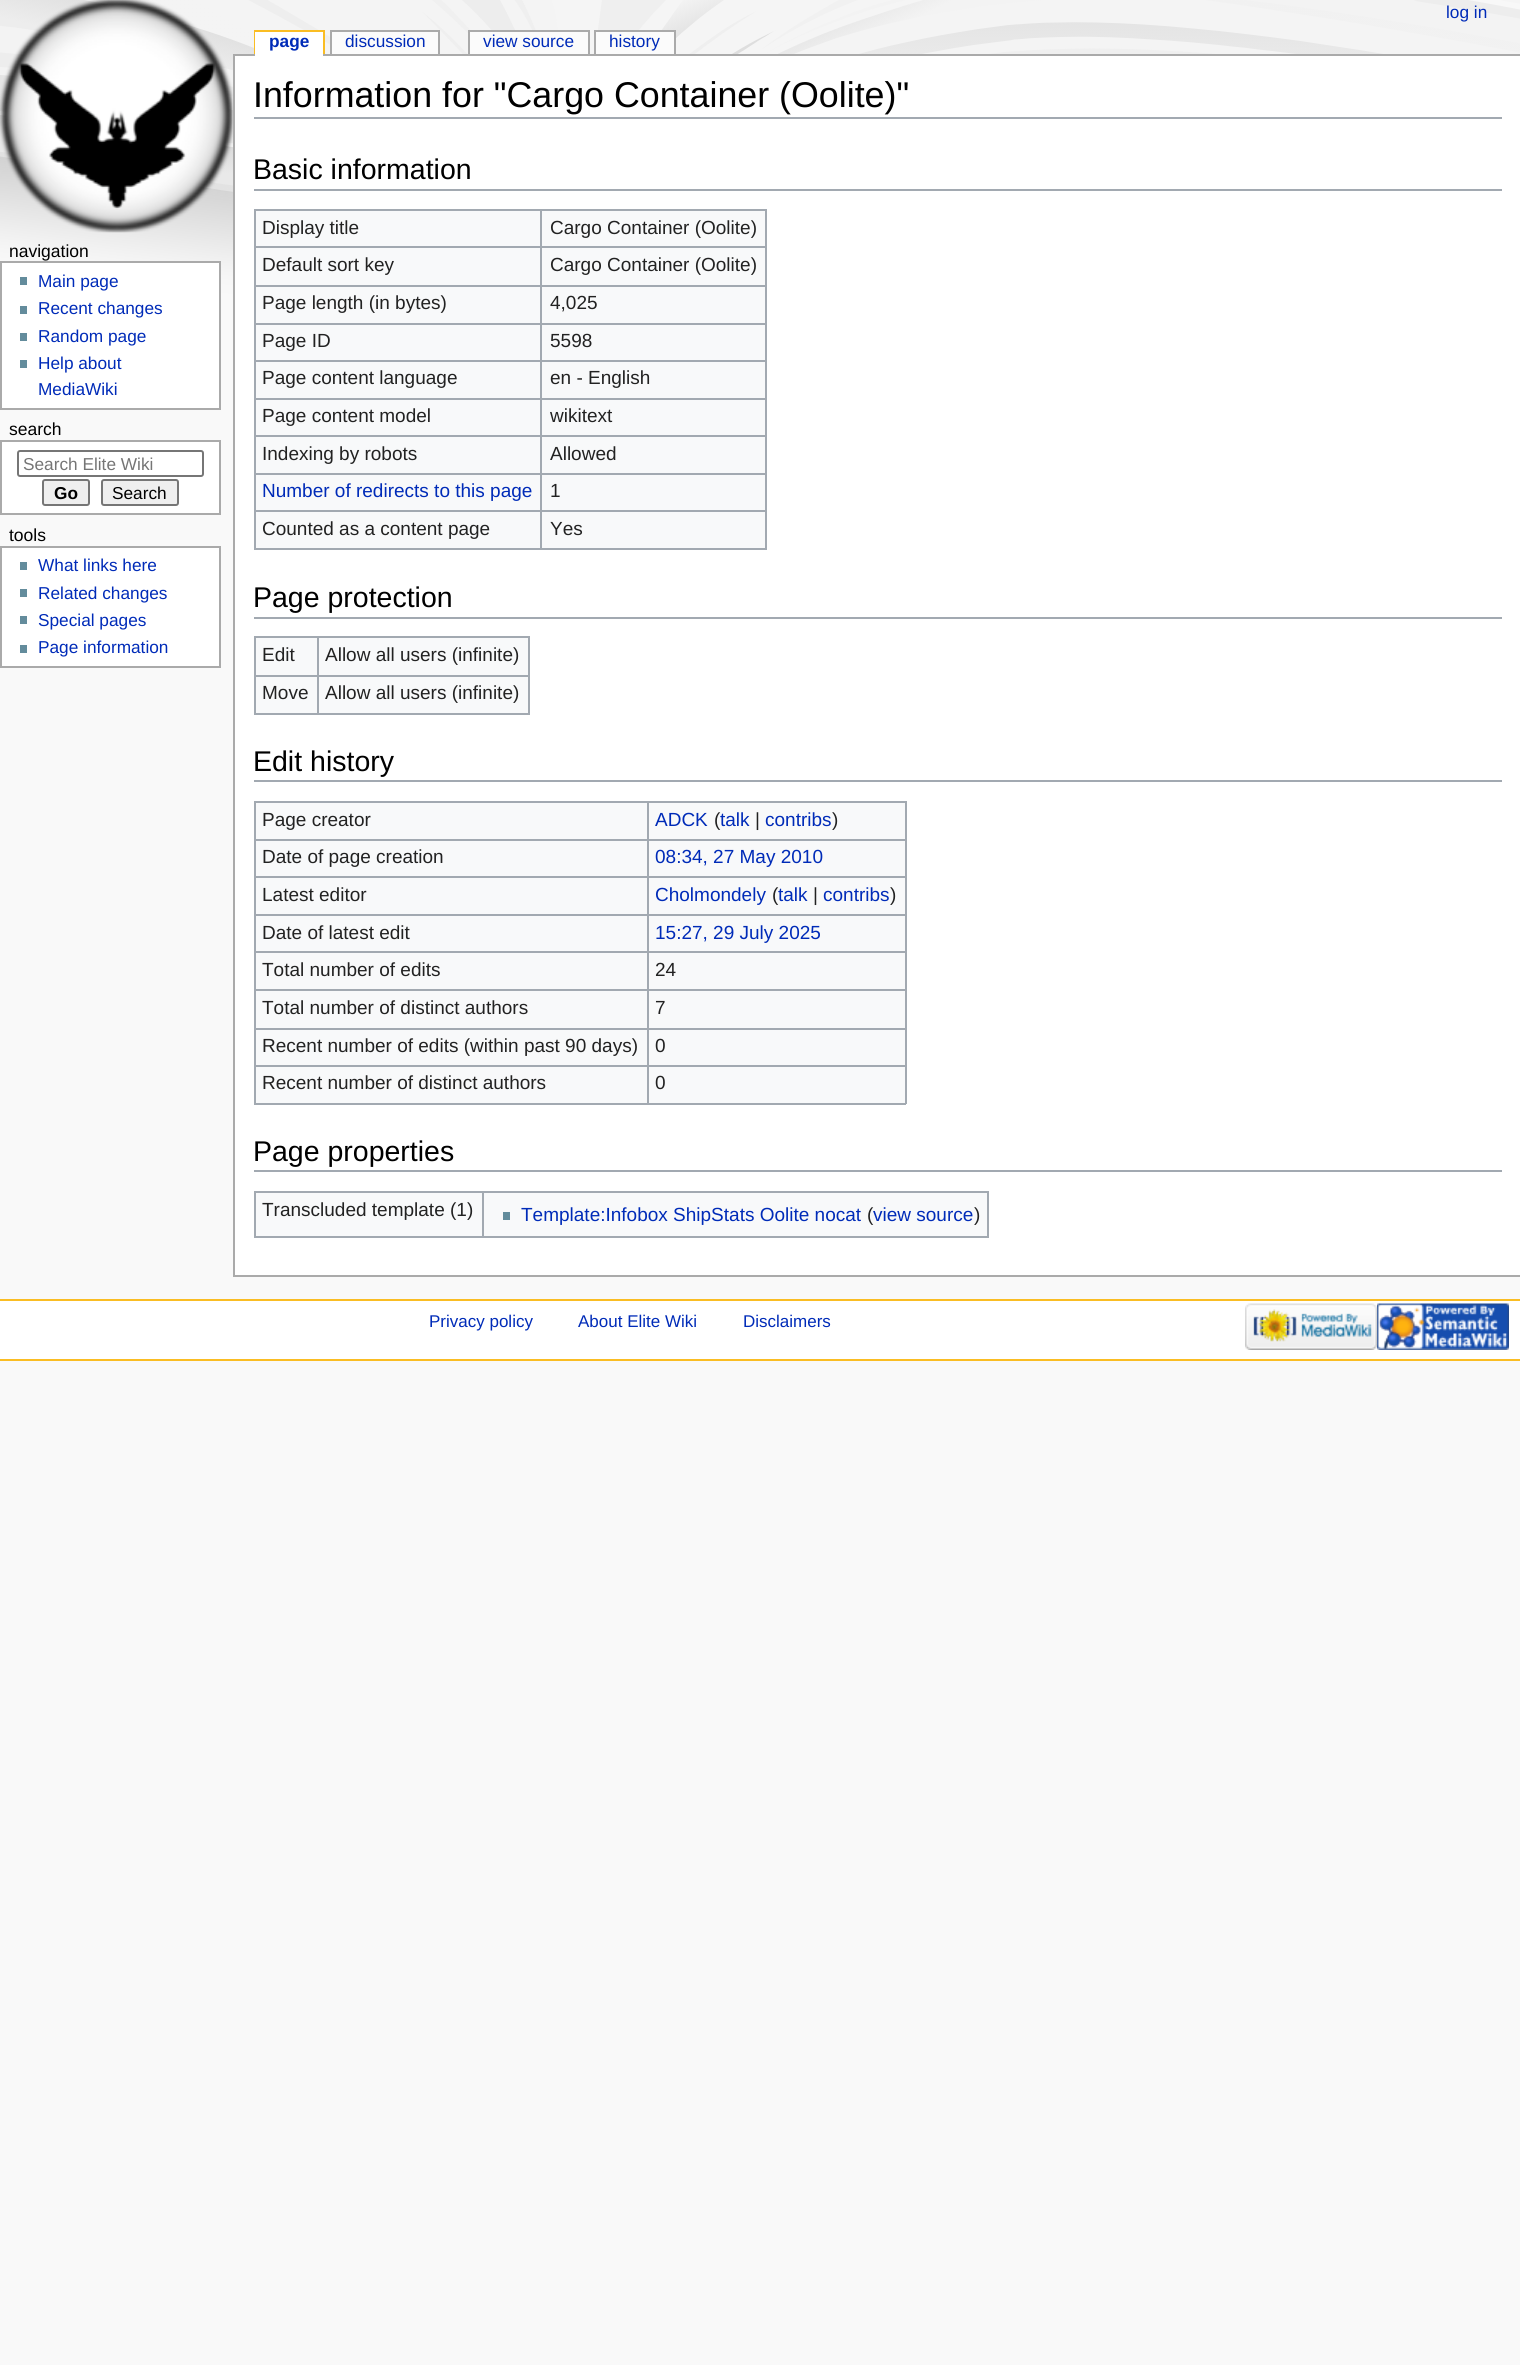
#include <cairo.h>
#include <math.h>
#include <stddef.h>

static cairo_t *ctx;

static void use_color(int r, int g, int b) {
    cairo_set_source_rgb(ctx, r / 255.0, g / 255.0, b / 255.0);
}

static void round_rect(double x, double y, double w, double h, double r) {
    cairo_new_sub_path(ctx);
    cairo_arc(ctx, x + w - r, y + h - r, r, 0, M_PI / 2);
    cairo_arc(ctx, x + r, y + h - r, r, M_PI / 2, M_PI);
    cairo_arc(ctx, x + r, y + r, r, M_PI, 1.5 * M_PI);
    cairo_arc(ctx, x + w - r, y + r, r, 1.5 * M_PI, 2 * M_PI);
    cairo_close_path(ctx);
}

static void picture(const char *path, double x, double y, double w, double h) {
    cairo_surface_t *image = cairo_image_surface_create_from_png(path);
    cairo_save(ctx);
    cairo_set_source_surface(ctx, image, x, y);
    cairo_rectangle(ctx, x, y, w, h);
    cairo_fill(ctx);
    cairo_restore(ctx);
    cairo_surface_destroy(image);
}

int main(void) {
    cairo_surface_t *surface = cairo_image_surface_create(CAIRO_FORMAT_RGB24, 1520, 2365);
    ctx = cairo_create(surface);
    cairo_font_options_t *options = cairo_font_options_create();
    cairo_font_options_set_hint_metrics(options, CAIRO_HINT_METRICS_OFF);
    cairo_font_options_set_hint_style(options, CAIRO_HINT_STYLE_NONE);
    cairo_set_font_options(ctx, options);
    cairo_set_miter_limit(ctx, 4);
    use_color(249, 249, 249);
    cairo_paint(ctx);
    picture("img1.png", 0, 0, 1520, 315);
    picture("img2.png", 0, 0, 233, 233);
    cairo_select_font_face(ctx, "Liberation Sans", CAIRO_FONT_SLANT_NORMAL, CAIRO_FONT_WEIGHT_NORMAL);
    cairo_set_font_size(ctx, 17.25);
    use_color(0, 43, 184);
    cairo_move_to(ctx, 1446, 18);
    cairo_show_text(ctx, "log in");
    use_color(250, 189, 35);
    cairo_rectangle(ctx, 254, 30, 70, 2);
    cairo_fill(ctx);
    cairo_rectangle(ctx, 254, 30, 2, 24);
    cairo_fill(ctx);
    use_color(170, 170, 170);
    cairo_rectangle(ctx, 233, 54, 1287, 2);
    cairo_fill(ctx);
    use_color(255, 255, 255);
    cairo_rectangle(ctx, 255, 32, 68, 24);
    cairo_fill(ctx);
    cairo_select_font_face(ctx, "Liberation Sans", CAIRO_FONT_SLANT_NORMAL, CAIRO_FONT_WEIGHT_BOLD);
    use_color(0, 43, 184);
    cairo_move_to(ctx, 269, 47);
    cairo_show_text(ctx, "page");
    use_color(250, 189, 35);
    cairo_rectangle(ctx, 323, 30, 2, 24);
    cairo_fill(ctx);
    use_color(251, 251, 251);
    cairo_rectangle(ctx, 332, 32, 106, 22);
    cairo_fill(ctx);
    cairo_select_font_face(ctx, "Liberation Sans", CAIRO_FONT_SLANT_NORMAL, CAIRO_FONT_WEIGHT_NORMAL);
    use_color(0, 43, 184);
    cairo_move_to(ctx, 345, 47);
    cairo_show_text(ctx, "discussion");
    use_color(170, 170, 170);
    cairo_rectangle(ctx, 330, 30, 110, 2);
    cairo_fill(ctx);
    cairo_rectangle(ctx, 438, 30, 2, 24);
    cairo_fill(ctx);
    cairo_rectangle(ctx, 330, 30, 2, 24);
    cairo_fill(ctx);
    use_color(251, 251, 251);
    cairo_rectangle(ctx, 470, 32, 118, 22);
    cairo_fill(ctx);
    use_color(0, 43, 184);
    cairo_move_to(ctx, 483, 47);
    cairo_show_text(ctx, "view source");
    use_color(170, 170, 170);
    cairo_rectangle(ctx, 468, 30, 122, 2);
    cairo_fill(ctx);
    cairo_rectangle(ctx, 588, 30, 2, 24);
    cairo_fill(ctx);
    cairo_rectangle(ctx, 468, 30, 2, 24);
    cairo_fill(ctx);
    use_color(251, 251, 251);
    cairo_rectangle(ctx, 596, 32, 78, 22);
    cairo_fill(ctx);
    use_color(0, 43, 184);
    cairo_move_to(ctx, 609, 47);
    cairo_show_text(ctx, "history");
    use_color(170, 170, 170);
    cairo_rectangle(ctx, 594, 30, 81, 2);
    cairo_fill(ctx);
    cairo_rectangle(ctx, 674, 30, 2, 24);
    cairo_fill(ctx);
    cairo_rectangle(ctx, 594, 30, 2, 24);
    cairo_fill(ctx);
    cairo_set_font_size(ctx, 17.5);
    use_color(0, 0, 0);
    cairo_move_to(ctx, 9, 257);
    cairo_show_text(ctx, "navigation");
    use_color(255, 255, 255);
    cairo_rectangle(ctx, 1, 262, 219, 147);
    cairo_fill_preserve(ctx);
    use_color(170, 170, 170);
    cairo_stroke(ctx);
    use_color(99, 140, 156);
    cairo_rectangle(ctx, 20, 277, 7, 8);
    cairo_fill(ctx);
    cairo_set_font_size(ctx, 17.25);
    use_color(0, 43, 184);
    cairo_move_to(ctx, 38, 287);
    cairo_show_text(ctx, "Main page");
    use_color(99, 140, 156);
    cairo_rectangle(ctx, 20, 306, 7, 8);
    cairo_fill(ctx);
    use_color(0, 43, 184);
    cairo_move_to(ctx, 38, 314);
    cairo_show_text(ctx, "Recent changes");
    use_color(99, 140, 156);
    cairo_rectangle(ctx, 20, 333, 7, 8);
    cairo_fill(ctx);
    use_color(0, 43, 184);
    cairo_move_to(ctx, 38, 342);
    cairo_show_text(ctx, "Random page");
    use_color(99, 140, 156);
    cairo_rectangle(ctx, 20, 360, 7, 8);
    cairo_fill(ctx);
    use_color(0, 43, 184);
    cairo_move_to(ctx, 38, 369);
    cairo_show_text(ctx, "Help about");
    cairo_move_to(ctx, 38, 395);
    cairo_show_text(ctx, "MediaWiki");
    cairo_set_font_size(ctx, 17.5);
    use_color(0, 0, 0);
    cairo_move_to(ctx, 9, 435);
    cairo_show_text(ctx, "search");
    use_color(255, 255, 255);
    cairo_rectangle(ctx, 1, 441, 219, 73);
    cairo_fill_preserve(ctx);
    use_color(170, 170, 170);
    cairo_stroke(ctx);
    round_rect(18, 451, 185, 25, 2);
    use_color(118, 118, 118);
    cairo_stroke(ctx);
    cairo_set_font_size(ctx, 17.25);
    use_color(117, 117, 117);
    cairo_move_to(ctx, 23, 470);
    cairo_show_text(ctx, "Search Elite Wiki");
    use_color(239, 239, 239);
    round_rect(43, 480, 46, 25, 2);
    cairo_fill_preserve(ctx);
    use_color(118, 118, 118);
    cairo_stroke(ctx);
    cairo_select_font_face(ctx, "Liberation Sans", CAIRO_FONT_SLANT_NORMAL, CAIRO_FONT_WEIGHT_BOLD);
    use_color(0, 0, 0);
    cairo_move_to(ctx, 54, 499);
    cairo_show_text(ctx, "Go");
    use_color(239, 239, 239);
    round_rect(102, 480, 76, 25, 2);
    cairo_fill_preserve(ctx);
    use_color(118, 118, 118);
    cairo_stroke(ctx);
    cairo_select_font_face(ctx, "Liberation Sans", CAIRO_FONT_SLANT_NORMAL, CAIRO_FONT_WEIGHT_NORMAL);
    use_color(0, 0, 0);
    cairo_move_to(ctx, 112, 499);
    cairo_show_text(ctx, "Search");
    cairo_set_font_size(ctx, 17.5);
    cairo_move_to(ctx, 9, 541);
    cairo_show_text(ctx, "tools");
    use_color(255, 255, 255);
    cairo_rectangle(ctx, 1, 547, 219, 120);
    cairo_fill_preserve(ctx);
    use_color(170, 170, 170);
    cairo_stroke(ctx);
    use_color(99, 140, 156);
    cairo_rectangle(ctx, 20, 562, 7, 8);
    cairo_fill(ctx);
    cairo_set_font_size(ctx, 17.25);
    use_color(0, 43, 184);
    cairo_move_to(ctx, 38, 571);
    cairo_show_text(ctx, "What links here");
    use_color(99, 140, 156);
    cairo_rectangle(ctx, 20, 589, 7, 8);
    cairo_fill(ctx);
    use_color(0, 43, 184);
    cairo_move_to(ctx, 38, 599);
    cairo_show_text(ctx, "Related changes");
    use_color(99, 140, 156);
    cairo_rectangle(ctx, 20, 616, 7, 8);
    cairo_fill(ctx);
    use_color(0, 43, 184);
    cairo_move_to(ctx, 38, 626);
    cairo_show_text(ctx, "Special pages");
    use_color(99, 140, 156);
    cairo_rectangle(ctx, 20, 645, 7, 8);
    cairo_fill(ctx);
    use_color(0, 43, 184);
    cairo_move_to(ctx, 38, 653);
    cairo_show_text(ctx, "Page information");
    use_color(255, 255, 255);
    cairo_rectangle(ctx, 235, 56, 1285, 1219);
    cairo_fill(ctx);
    use_color(170, 170, 170);
    cairo_rectangle(ctx, 233, 1275, 1287, 2);
    cairo_fill(ctx);
    cairo_rectangle(ctx, 233, 54, 2, 1223);
    cairo_fill(ctx);
    use_color(162, 169, 177);
    cairo_rectangle(ctx, 254, 117, 1248, 2);
    cairo_fill(ctx);
    cairo_set_font_size(ctx, 35.8);
    use_color(0, 0, 0);
    cairo_move_to(ctx, 253, 107);
    cairo_show_text(ctx, "Information for \"Cargo Container (Oolite)\"");
    use_color(162, 169, 177);
    cairo_rectangle(ctx, 254, 189, 1248, 2);
    cairo_fill(ctx);
    cairo_set_font_size(ctx, 28.5);
    use_color(0, 0, 0);
    cairo_move_to(ctx, 253, 179);
    cairo_show_text(ctx, "Basic information");
    use_color(248, 249, 250);
    cairo_rectangle(ctx, 256, 211, 509, 337);
    cairo_fill(ctx);
    use_color(162, 169, 177);
    cairo_rectangle(ctx, 254, 209, 513, 2);
    cairo_fill(ctx);
    cairo_rectangle(ctx, 765, 209, 2, 340);
    cairo_fill(ctx);
    cairo_rectangle(ctx, 254, 548, 513, 2);
    cairo_fill(ctx);
    cairo_rectangle(ctx, 254, 209, 2, 340);
    cairo_fill(ctx);
    cairo_set_font_size(ctx, 19);
    use_color(34, 34, 34);
    cairo_move_to(ctx, 262, 234);
    cairo_show_text(ctx, "Display title");
    use_color(162, 169, 177);
    cairo_rectangle(ctx, 540, 246, 227, 2);
    cairo_fill(ctx);
    cairo_rectangle(ctx, 540, 285, 227, 2);
    cairo_fill(ctx);
    cairo_rectangle(ctx, 540, 323, 227, 2);
    cairo_fill(ctx);
    cairo_rectangle(ctx, 540, 360, 227, 2);
    cairo_fill(ctx);
    cairo_rectangle(ctx, 540, 398, 227, 2);
    cairo_fill(ctx);
    cairo_rectangle(ctx, 540, 435, 227, 2);
    cairo_fill(ctx);
    cairo_rectangle(ctx, 540, 473, 227, 2);
    cairo_fill(ctx);
    cairo_rectangle(ctx, 540, 510, 227, 2);
    cairo_fill(ctx);
    cairo_rectangle(ctx, 540, 510, 2, 39);
    cairo_fill(ctx);
    cairo_rectangle(ctx, 254, 510, 288, 2);
    cairo_fill(ctx);
    cairo_rectangle(ctx, 540, 473, 2, 39);
    cairo_fill(ctx);
    cairo_rectangle(ctx, 254, 473, 288, 2);
    cairo_fill(ctx);
    cairo_rectangle(ctx, 540, 435, 2, 39);
    cairo_fill(ctx);
    cairo_rectangle(ctx, 254, 435, 288, 2);
    cairo_fill(ctx);
    cairo_rectangle(ctx, 540, 398, 2, 39);
    cairo_fill(ctx);
    cairo_rectangle(ctx, 254, 398, 288, 2);
    cairo_fill(ctx);
    cairo_rectangle(ctx, 540, 360, 2, 39);
    cairo_fill(ctx);
    cairo_rectangle(ctx, 254, 360, 288, 2);
    cairo_fill(ctx);
    cairo_rectangle(ctx, 540, 323, 2, 39);
    cairo_fill(ctx);
    cairo_rectangle(ctx, 254, 323, 288, 2);
    cairo_fill(ctx);
    cairo_rectangle(ctx, 540, 285, 2, 39);
    cairo_fill(ctx);
    cairo_rectangle(ctx, 254, 285, 288, 2);
    cairo_fill(ctx);
    cairo_rectangle(ctx, 540, 246, 2, 41);
    cairo_fill(ctx);
    cairo_rectangle(ctx, 254, 246, 288, 2);
    cairo_fill(ctx);
    cairo_rectangle(ctx, 540, 209, 2, 39);
    cairo_fill(ctx);
    use_color(34, 34, 34);
    cairo_move_to(ctx, 550, 234);
    cairo_show_text(ctx, "Cargo Container (Oolite)");
    cairo_move_to(ctx, 262, 271);
    cairo_show_text(ctx, "Default sort key");
    cairo_move_to(ctx, 550, 271);
    cairo_show_text(ctx, "Cargo Container (Oolite)");
    cairo_move_to(ctx, 262, 309);
    cairo_show_text(ctx, "Page length (in bytes)");
    cairo_move_to(ctx, 550, 309);
    cairo_show_text(ctx, "4,025");
    cairo_move_to(ctx, 262, 347);
    cairo_show_text(ctx, "Page ID");
    cairo_move_to(ctx, 550, 347);
    cairo_show_text(ctx, "5598");
    cairo_move_to(ctx, 262, 384);
    cairo_show_text(ctx, "Page content language");
    cairo_move_to(ctx, 550, 384);
    cairo_show_text(ctx, "en - English");
    cairo_move_to(ctx, 262, 422);
    cairo_show_text(ctx, "Page content model");
    cairo_move_to(ctx, 550, 422);
    cairo_show_text(ctx, "wikitext");
    cairo_move_to(ctx, 262, 460);
    cairo_show_text(ctx, "Indexing by robots");
    cairo_move_to(ctx, 550, 460);
    cairo_show_text(ctx, "Allowed");
    use_color(0, 43, 184);
    cairo_move_to(ctx, 262, 497);
    cairo_show_text(ctx, "Number of redirects to this page");
    use_color(34, 34, 34);
    cairo_move_to(ctx, 550, 497);
    cairo_show_text(ctx, "1");
    cairo_move_to(ctx, 262, 535);
    cairo_show_text(ctx, "Counted as a content page");
    cairo_move_to(ctx, 550, 535);
    cairo_show_text(ctx, "Yes");
    use_color(162, 169, 177);
    cairo_rectangle(ctx, 254, 617, 1248, 2);
    cairo_fill(ctx);
    cairo_set_font_size(ctx, 28.5);
    use_color(0, 0, 0);
    cairo_move_to(ctx, 253, 607);
    cairo_show_text(ctx, "Page protection");
    use_color(248, 249, 250);
    cairo_rectangle(ctx, 256, 638, 272, 75);
    cairo_fill(ctx);
    use_color(162, 169, 177);
    cairo_rectangle(ctx, 254, 636, 276, 2);
    cairo_fill(ctx);
    cairo_rectangle(ctx, 528, 636, 2, 78);
    cairo_fill(ctx);
    cairo_rectangle(ctx, 254, 713, 276, 2);
    cairo_fill(ctx);
    cairo_rectangle(ctx, 254, 636, 2, 78);
    cairo_fill(ctx);
    cairo_set_font_size(ctx, 19);
    use_color(34, 34, 34);
    cairo_move_to(ctx, 262, 661);
    cairo_show_text(ctx, "Edit");
    use_color(162, 169, 177);
    cairo_rectangle(ctx, 317, 675, 213, 2);
    cairo_fill(ctx);
    cairo_rectangle(ctx, 317, 675, 2, 39);
    cairo_fill(ctx);
    cairo_rectangle(ctx, 254, 675, 64, 2);
    cairo_fill(ctx);
    cairo_rectangle(ctx, 317, 636, 2, 41);
    cairo_fill(ctx);
    use_color(34, 34, 34);
    cairo_move_to(ctx, 325, 661);
    cairo_show_text(ctx, "Allow all users (infinite)");
    cairo_move_to(ctx, 262, 699);
    cairo_show_text(ctx, "Move");
    cairo_move_to(ctx, 325, 699);
    cairo_show_text(ctx, "Allow all users (infinite)");
    use_color(162, 169, 177);
    cairo_rectangle(ctx, 254, 780, 1248, 2);
    cairo_fill(ctx);
    cairo_set_font_size(ctx, 28.5);
    use_color(0, 0, 0);
    cairo_move_to(ctx, 253, 771);
    cairo_show_text(ctx, "Edit history");
    use_color(248, 249, 250);
    cairo_rectangle(ctx, 256, 803, 649, 300);
    cairo_fill(ctx);
    use_color(162, 169, 177);
    cairo_rectangle(ctx, 254, 801, 652, 2);
    cairo_fill(ctx);
    cairo_rectangle(ctx, 905, 801, 2, 303);
    cairo_fill(ctx);
    cairo_rectangle(ctx, 254, 1103, 652, 2);
    cairo_fill(ctx);
    cairo_rectangle(ctx, 254, 801, 2, 303);
    cairo_fill(ctx);
    cairo_set_font_size(ctx, 19);
    use_color(34, 34, 34);
    cairo_move_to(ctx, 262, 826);
    cairo_show_text(ctx, "Page creator");
    use_color(162, 169, 177);
    cairo_rectangle(ctx, 647, 839, 259, 2);
    cairo_fill(ctx);
    cairo_rectangle(ctx, 647, 876, 259, 2);
    cairo_fill(ctx);
    cairo_rectangle(ctx, 647, 914, 259, 2);
    cairo_fill(ctx);
    cairo_rectangle(ctx, 647, 951, 259, 2);
    cairo_fill(ctx);
    cairo_rectangle(ctx, 647, 989, 259, 2);
    cairo_fill(ctx);
    cairo_rectangle(ctx, 647, 1028, 259, 2);
    cairo_fill(ctx);
    cairo_rectangle(ctx, 647, 1065, 259, 2);
    cairo_fill(ctx);
    cairo_rectangle(ctx, 647, 1065, 2, 39);
    cairo_fill(ctx);
    cairo_rectangle(ctx, 254, 1065, 394, 2);
    cairo_fill(ctx);
    cairo_rectangle(ctx, 647, 1028, 2, 39);
    cairo_fill(ctx);
    cairo_rectangle(ctx, 254, 1028, 394, 2);
    cairo_fill(ctx);
    cairo_rectangle(ctx, 647, 989, 2, 40);
    cairo_fill(ctx);
    cairo_rectangle(ctx, 254, 989, 394, 2);
    cairo_fill(ctx);
    cairo_rectangle(ctx, 647, 951, 2, 39);
    cairo_fill(ctx);
    cairo_rectangle(ctx, 254, 951, 394, 2);
    cairo_fill(ctx);
    cairo_rectangle(ctx, 647, 914, 2, 39);
    cairo_fill(ctx);
    cairo_rectangle(ctx, 254, 914, 394, 2);
    cairo_fill(ctx);
    cairo_rectangle(ctx, 647, 876, 2, 39);
    cairo_fill(ctx);
    cairo_rectangle(ctx, 254, 876, 394, 2);
    cairo_fill(ctx);
    cairo_rectangle(ctx, 647, 839, 2, 39);
    cairo_fill(ctx);
    cairo_rectangle(ctx, 254, 839, 394, 2);
    cairo_fill(ctx);
    cairo_rectangle(ctx, 647, 801, 2, 39);
    cairo_fill(ctx);
    use_color(0, 43, 184);
    cairo_move_to(ctx, 655, 826);
    cairo_show_text(ctx, "ADCK");
    use_color(34, 34, 34);
    cairo_move_to(ctx, 714, 826);
    cairo_show_text(ctx, "(");
    use_color(0, 43, 184);
    cairo_move_to(ctx, 720, 826);
    cairo_show_text(ctx, "talk");
    use_color(34, 34, 34);
    cairo_move_to(ctx, 755, 826);
    cairo_show_text(ctx, "|");
    use_color(0, 43, 184);
    cairo_move_to(ctx, 765, 826);
    cairo_show_text(ctx, "contribs");
    use_color(34, 34, 34);
    cairo_move_to(ctx, 832, 826);
    cairo_show_text(ctx, ")");
    cairo_move_to(ctx, 262, 863);
    cairo_show_text(ctx, "Date of page creation");
    use_color(0, 43, 184);
    cairo_move_to(ctx, 655, 863);
    cairo_show_text(ctx, "08:34, 27 May 2010");
    use_color(34, 34, 34);
    cairo_move_to(ctx, 262, 901);
    cairo_show_text(ctx, "Latest editor");
    use_color(0, 43, 184);
    cairo_move_to(ctx, 655, 901);
    cairo_show_text(ctx, "Cholmondely");
    use_color(34, 34, 34);
    cairo_move_to(ctx, 772, 901);
    cairo_show_text(ctx, "(");
    use_color(0, 43, 184);
    cairo_move_to(ctx, 778, 901);
    cairo_show_text(ctx, "talk");
    use_color(34, 34, 34);
    cairo_move_to(ctx, 813, 901);
    cairo_show_text(ctx, "|");
    use_color(0, 43, 184);
    cairo_move_to(ctx, 823, 901);
    cairo_show_text(ctx, "contribs");
    use_color(34, 34, 34);
    cairo_move_to(ctx, 890, 901);
    cairo_show_text(ctx, ")");
    cairo_move_to(ctx, 262, 939);
    cairo_show_text(ctx, "Date of latest edit");
    use_color(0, 43, 184);
    cairo_move_to(ctx, 655, 939);
    cairo_show_text(ctx, "15:27, 29 July 2025");
    use_color(34, 34, 34);
    cairo_move_to(ctx, 262, 976);
    cairo_show_text(ctx, "Total number of edits");
    cairo_move_to(ctx, 655, 976);
    cairo_show_text(ctx, "24");
    cairo_move_to(ctx, 262, 1014);
    cairo_show_text(ctx, "Total number of distinct authors");
    cairo_move_to(ctx, 655, 1014);
    cairo_show_text(ctx, "7");
    cairo_move_to(ctx, 262, 1052);
    cairo_show_text(ctx, "Recent number of edits (within past 90 days)");
    cairo_move_to(ctx, 655, 1052);
    cairo_show_text(ctx, "0");
    cairo_move_to(ctx, 262, 1089);
    cairo_show_text(ctx, "Recent number of distinct authors");
    cairo_move_to(ctx, 655, 1089);
    cairo_show_text(ctx, "0");
    use_color(162, 169, 177);
    cairo_rectangle(ctx, 254, 1170, 1248, 2);
    cairo_fill(ctx);
    cairo_set_font_size(ctx, 28.5);
    use_color(0, 0, 0);
    cairo_move_to(ctx, 253, 1161);
    cairo_show_text(ctx, "Page properties");
    use_color(248, 249, 250);
    cairo_rectangle(ctx, 256, 1193, 731, 43);
    cairo_fill(ctx);
    use_color(162, 169, 177);
    cairo_rectangle(ctx, 254, 1191, 735, 2);
    cairo_fill(ctx);
    cairo_rectangle(ctx, 987, 1191, 2, 47);
    cairo_fill(ctx);
    cairo_rectangle(ctx, 254, 1236, 735, 2);
    cairo_fill(ctx);
    cairo_rectangle(ctx, 254, 1191, 2, 47);
    cairo_fill(ctx);
    cairo_set_font_size(ctx, 19);
    use_color(34, 34, 34);
    cairo_move_to(ctx, 262, 1216);
    cairo_show_text(ctx, "Transcluded template (1)");
    use_color(162, 169, 177);
    cairo_rectangle(ctx, 482, 1191, 2, 47);
    cairo_fill(ctx);
    use_color(99, 140, 156);
    cairo_rectangle(ctx, 503, 1212, 7, 8);
    cairo_fill(ctx);
    use_color(0, 43, 184);
    cairo_move_to(ctx, 521, 1221);
    cairo_show_text(ctx, "Template:Infobox ShipStats Oolite nocat");
    use_color(34, 34, 34);
    cairo_move_to(ctx, 867, 1221);
    cairo_show_text(ctx, "(");
    use_color(0, 43, 184);
    cairo_move_to(ctx, 873, 1221);
    cairo_show_text(ctx, "view source");
    use_color(34, 34, 34);
    cairo_move_to(ctx, 974, 1221);
    cairo_show_text(ctx, ")");
    use_color(255, 255, 255);
    cairo_rectangle(ctx, 0, 1301, 1520, 58);
    cairo_fill(ctx);
    use_color(250, 189, 35);
    cairo_rectangle(ctx, 0, 1299, 1520, 2);
    cairo_fill(ctx);
    cairo_rectangle(ctx, 0, 1359, 1520, 2);
    cairo_fill(ctx);
    cairo_set_font_size(ctx, 17);
    use_color(0, 43, 184);
    cairo_move_to(ctx, 429, 1327);
    cairo_show_text(ctx, "Privacy policy");
    cairo_move_to(ctx, 578, 1327);
    cairo_show_text(ctx, "About Elite Wiki");
    cairo_move_to(ctx, 743, 1327);
    cairo_show_text(ctx, "Disclaimers");
    picture("img3.png", 1245, 1303, 132, 47);
    picture("img4.png", 1377, 1303, 132, 47);
    cairo_surface_write_to_png(surface, "result.png");
    cairo_font_options_destroy(options);
    cairo_destroy(ctx);
    cairo_surface_destroy(surface);
    return 0;
}
